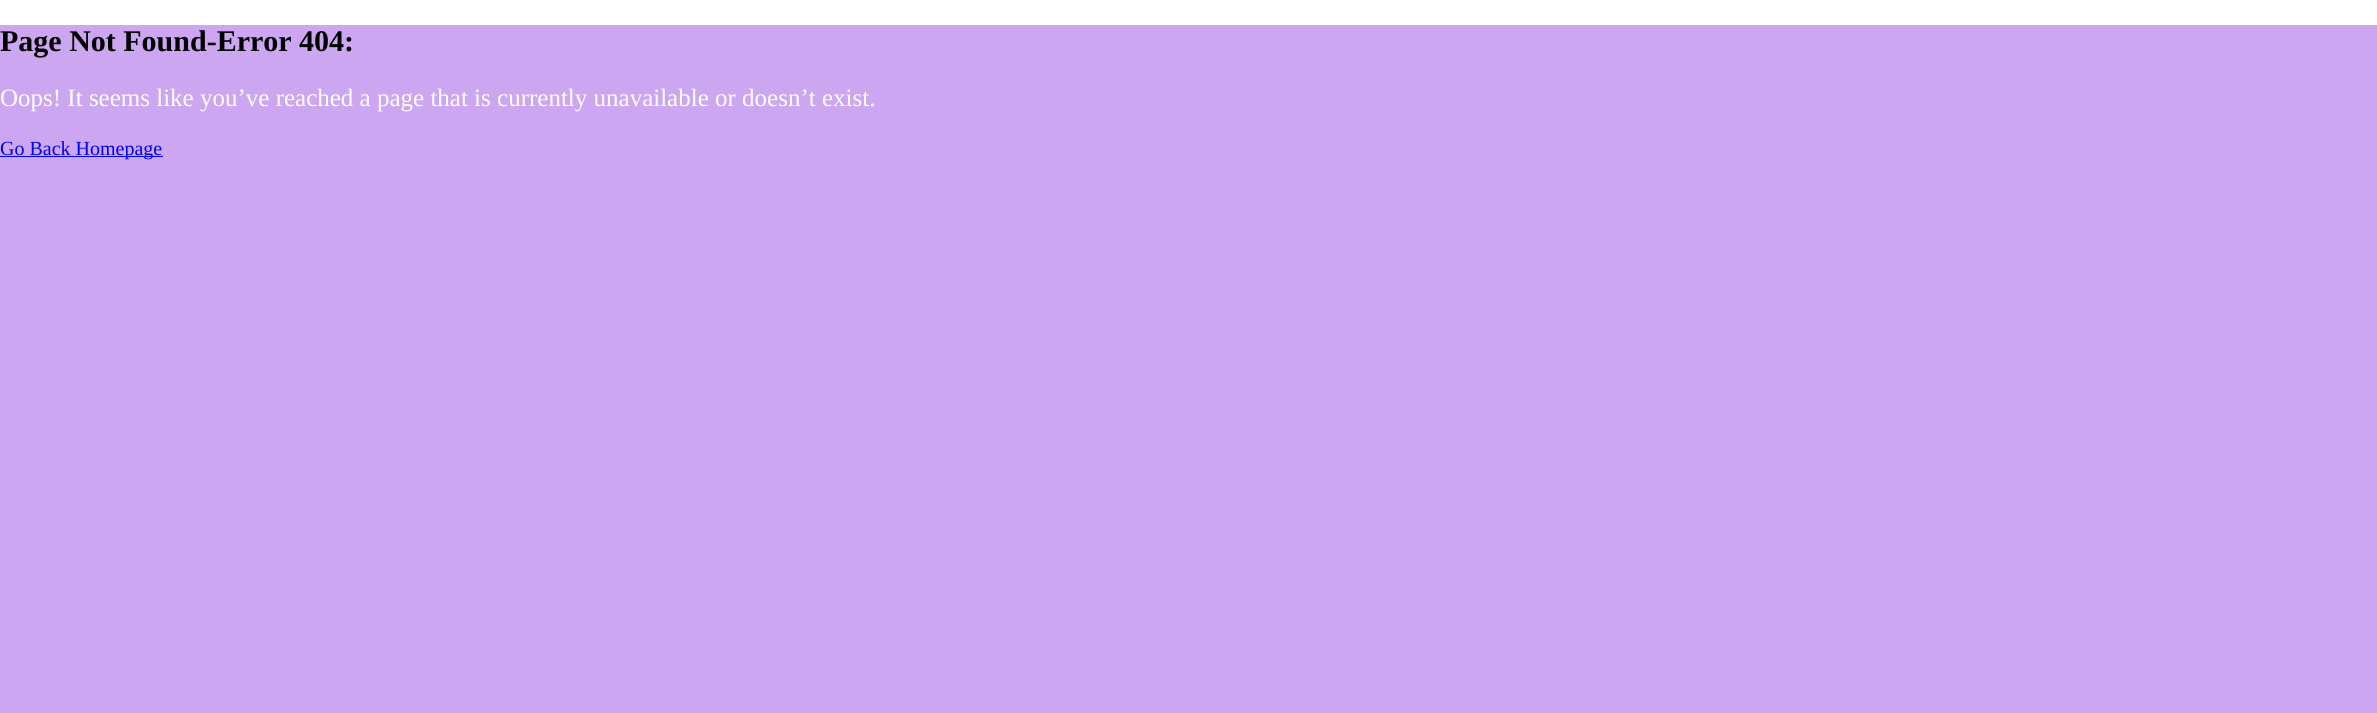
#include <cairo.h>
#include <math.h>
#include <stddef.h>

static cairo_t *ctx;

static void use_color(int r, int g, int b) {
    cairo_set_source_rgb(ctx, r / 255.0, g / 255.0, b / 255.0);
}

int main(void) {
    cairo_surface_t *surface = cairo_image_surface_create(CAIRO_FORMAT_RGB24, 2377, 713);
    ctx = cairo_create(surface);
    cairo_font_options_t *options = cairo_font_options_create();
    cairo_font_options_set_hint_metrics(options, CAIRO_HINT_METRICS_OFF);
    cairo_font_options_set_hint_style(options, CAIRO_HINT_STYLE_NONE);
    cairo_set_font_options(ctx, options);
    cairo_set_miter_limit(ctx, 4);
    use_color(255, 255, 255);
    cairo_paint(ctx);
    use_color(204, 166, 241);
    cairo_rectangle(ctx, 0, 25, 2377, 688);
    cairo_fill(ctx);
    cairo_select_font_face(ctx, "Liberation Serif", CAIRO_FONT_SLANT_NORMAL, CAIRO_FONT_WEIGHT_BOLD);
    cairo_set_font_size(ctx, 30);
    use_color(0, 0, 0);
    cairo_move_to(ctx, 0, 51);
    cairo_show_text(ctx, "Page Not Found-Error 404:");
    cairo_select_font_face(ctx, "Liberation Serif", CAIRO_FONT_SLANT_NORMAL, CAIRO_FONT_WEIGHT_NORMAL);
    cairo_set_font_size(ctx, 25);
    use_color(255, 255, 255);
    cairo_move_to(ctx, 0, 106);
    cairo_show_text(ctx, "Oops! It seems like you’ve reached a page that is currently unavailable or doesn’t exist.");
    use_color(0, 0, 238);
    cairo_rectangle(ctx, 0, 156, 163, 1);
    cairo_fill(ctx);
    cairo_set_font_size(ctx, 20);
    cairo_move_to(ctx, 0, 155);
    cairo_show_text(ctx, "Go Back Homepage");
    cairo_surface_write_to_png(surface, "result.png");
    cairo_font_options_destroy(options);
    cairo_destroy(ctx);
    cairo_surface_destroy(surface);
    return 0;
}
